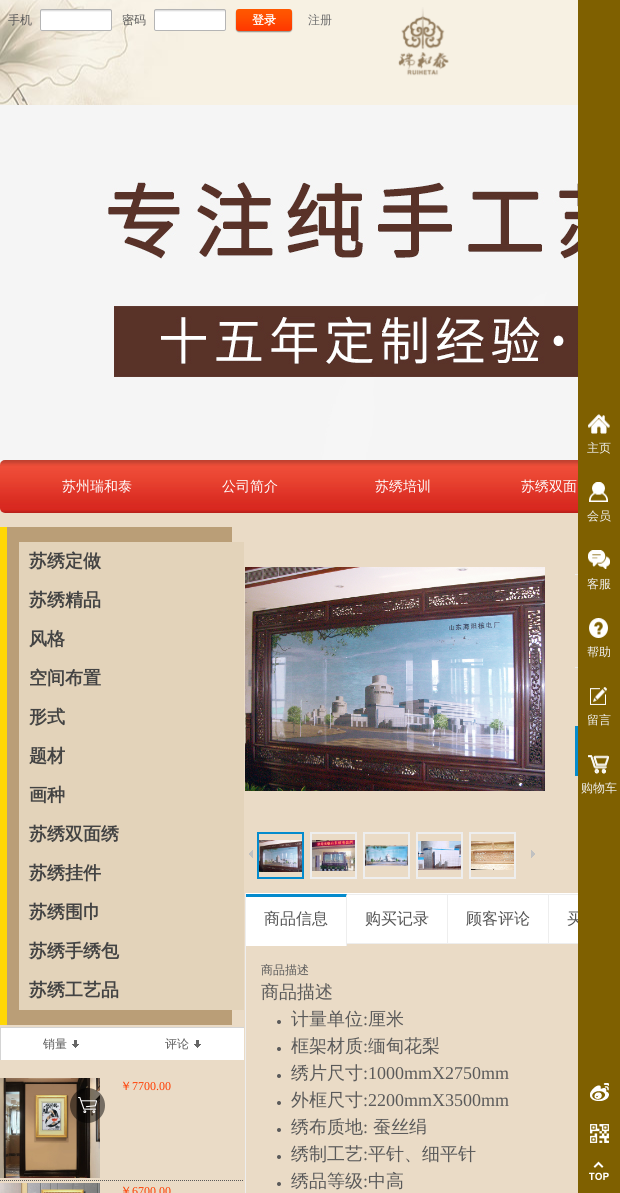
#include <cairo.h>
#include <math.h>
#include <stddef.h>

static cairo_t *ctx;

static void use_color(int r, int g, int b) {
    cairo_set_source_rgb(ctx, r / 255.0, g / 255.0, b / 255.0);
}

static void round_rect(double x, double y, double w, double h, double r) {
    cairo_new_sub_path(ctx);
    cairo_arc(ctx, x + w - r, y + h - r, r, 0, M_PI / 2);
    cairo_arc(ctx, x + r, y + h - r, r, M_PI / 2, M_PI);
    cairo_arc(ctx, x + r, y + r, r, M_PI, 1.5 * M_PI);
    cairo_arc(ctx, x + w - r, y + r, r, 1.5 * M_PI, 2 * M_PI);
    cairo_close_path(ctx);
}

static void shadow(double x, double y, double w, double h, double r, double blur, double alpha) {
    cairo_push_group_with_content(ctx, CAIRO_CONTENT_ALPHA);
    cairo_set_operator(ctx, CAIRO_OPERATOR_SOURCE);
    for (int i = 15; i >= -15 && fmin(w, h) + blur * i / 3 > 0; i -= 2) {
        double e = blur * i / 6;
        cairo_set_source_rgba(ctx, 0, 0, 0, alpha * erfc((i - 1) / 8.5) / 2);
        round_rect(x - e, y - e, w + 2 * e, h + 2 * e, fmax(0, fmin(r + e + blur * .6, fmin(w, h) / 2 + e)));
        cairo_fill(ctx);
    }
    cairo_pattern_t *soft = cairo_pop_group(ctx);
    cairo_mask(ctx, soft);
    cairo_pattern_destroy(soft);
}

static void picture(const char *path, double x, double y, double w, double h) {
    cairo_surface_t *image = cairo_image_surface_create_from_png(path);
    cairo_save(ctx);
    cairo_set_source_surface(ctx, image, x, y);
    cairo_rectangle(ctx, x, y, w, h);
    cairo_fill(ctx);
    cairo_restore(ctx);
    cairo_surface_destroy(image);
}

int main(void) {
    cairo_surface_t *surface = cairo_image_surface_create(CAIRO_FORMAT_RGB24, 620, 1193);
    ctx = cairo_create(surface);
    cairo_font_options_t *options = cairo_font_options_create();
    cairo_font_options_set_hint_metrics(options, CAIRO_HINT_METRICS_OFF);
    cairo_font_options_set_hint_style(options, CAIRO_HINT_STYLE_NONE);
    cairo_set_font_options(ctx, options);
    cairo_set_miter_limit(ctx, 4);
    use_color(234, 219, 198);
    cairo_paint(ctx);
    picture("img1.png", 0, 0, 578, 105);
    cairo_select_font_face(ctx, "WenQuanYi Zen Hei Medium", CAIRO_FONT_SLANT_NORMAL, CAIRO_FONT_WEIGHT_NORMAL);
    cairo_set_font_size(ctx, 12);
    use_color(90, 90, 90);
    cairo_move_to(ctx, 8, 24);
    cairo_show_text(ctx, "手机");
    picture("img2.png", 40, 10, 72, 21);
    round_rect(40.5, 9.5, 71, 21, 1.5);
    use_color(181, 181, 181);
    cairo_set_line_width(ctx, 1);
    cairo_stroke(ctx);
    use_color(90, 90, 90);
    cairo_move_to(ctx, 122, 24);
    cairo_show_text(ctx, "密码");
    picture("img3.png", 154, 10, 72, 21);
    round_rect(154.5, 9.5, 71, 21, 1.5);
    use_color(181, 181, 181);
    cairo_stroke(ctx);
    use_color(0, 0, 0);
    shadow(236, 10, 56, 22, 3, 0.5, 0.4);
    picture("img4.png", 236, 9, 56, 22);
    cairo_select_font_face(ctx, "WenQuanYi Zen Hei", CAIRO_FONT_SLANT_NORMAL, CAIRO_FONT_WEIGHT_BOLD);
    use_color(255, 255, 255);
    cairo_move_to(ctx, 252, 24);
    cairo_show_text(ctx, "登录");
    cairo_select_font_face(ctx, "WenQuanYi Zen Hei Medium", CAIRO_FONT_SLANT_NORMAL, CAIRO_FONT_WEIGHT_NORMAL);
    use_color(111, 111, 111);
    cairo_move_to(ctx, 308, 24);
    cairo_show_text(ctx, "注册");
    picture("img5.png", 398, 7, 51, 69);
    picture("img6.png", 0, 105, 578, 357);
    picture("img7.png", 0, 460, 578, 53);
    cairo_set_font_size(ctx, 14);
    use_color(255, 255, 255);
    cairo_move_to(ctx, 62, 491);
    cairo_show_text(ctx, "苏州瑞和泰");
    cairo_move_to(ctx, 222, 491);
    cairo_show_text(ctx, "公司简介");
    cairo_move_to(ctx, 375, 491);
    cairo_show_text(ctx, "苏绣培训");
    cairo_move_to(ctx, 521, 491);
    cairo_show_text(ctx, "苏绣双面");
    use_color(186, 158, 119);
    cairo_rectangle(ctx, 7, 527, 225, 498);
    cairo_fill(ctx);
    use_color(255, 215, 4);
    cairo_rectangle(ctx, 0, 527, 7, 498);
    cairo_fill(ctx);
    use_color(227, 211, 186);
    cairo_rectangle(ctx, 19, 542, 225, 468);
    cairo_fill(ctx);
    cairo_select_font_face(ctx, "WenQuanYi Zen Hei", CAIRO_FONT_SLANT_NORMAL, CAIRO_FONT_WEIGHT_BOLD);
    cairo_set_font_size(ctx, 18);
    use_color(67, 67, 67);
    cairo_move_to(ctx, 29, 567);
    cairo_show_text(ctx, "苏绣定做");
    cairo_move_to(ctx, 29, 606);
    cairo_show_text(ctx, "苏绣精品");
    cairo_move_to(ctx, 29, 645);
    cairo_show_text(ctx, "风格");
    cairo_move_to(ctx, 29, 684);
    cairo_show_text(ctx, "空间布置");
    cairo_move_to(ctx, 29, 723);
    cairo_show_text(ctx, "形式");
    cairo_move_to(ctx, 29, 762);
    cairo_show_text(ctx, "题材");
    cairo_move_to(ctx, 29, 801);
    cairo_show_text(ctx, "画种");
    cairo_move_to(ctx, 29, 840);
    cairo_show_text(ctx, "苏绣双面绣");
    cairo_move_to(ctx, 29, 879);
    cairo_show_text(ctx, "苏绣挂件");
    cairo_move_to(ctx, 29, 918);
    cairo_show_text(ctx, "苏绣围巾");
    cairo_move_to(ctx, 29, 957);
    cairo_show_text(ctx, "苏绣手绣包");
    cairo_move_to(ctx, 29, 996);
    cairo_show_text(ctx, "苏绣工艺品");
    use_color(212, 212, 212);
    cairo_rectangle(ctx, 0, 1027, 244, 1);
    cairo_fill(ctx);
    cairo_rectangle(ctx, 0, 1027, 1, 33);
    cairo_fill(ctx);
    use_color(255, 255, 255);
    cairo_rectangle(ctx, 1, 1028, 243, 32);
    cairo_fill(ctx);
    cairo_select_font_face(ctx, "WenQuanYi Zen Hei Medium", CAIRO_FONT_SLANT_NORMAL, CAIRO_FONT_WEIGHT_NORMAL);
    cairo_set_font_size(ctx, 12);
    use_color(90, 90, 90);
    cairo_move_to(ctx, 43, 1048);
    cairo_show_text(ctx, "销量");
    picture("img8.png", 72, 1040, 7, 8);
    cairo_move_to(ctx, 165, 1048);
    cairo_show_text(ctx, "评论");
    picture("img8.png", 194, 1040, 7, 8);
    cairo_new_path(ctx);
    cairo_move_to(ctx, 0, 1180.5);
    cairo_line_to(ctx, 244, 1180.5);
    cairo_set_dash(ctx, (double[]){1, 1}, 2, 0);
    cairo_stroke(ctx);
    picture("img9.png", 0, 1078, 100, 100);
    use_color(255, 60, 0);
    cairo_move_to(ctx, 120, 1090);
    cairo_show_text(ctx, "￥");
    cairo_select_font_face(ctx, "Liberation Serif", CAIRO_FONT_SLANT_NORMAL, CAIRO_FONT_WEIGHT_NORMAL);
    cairo_move_to(ctx, 132, 1090);
    cairo_show_text(ctx, "7700.00");
    picture("img10.png", 70, 1088, 35, 35);
    picture("img11.png", 0, 1183, 100, 10);
    cairo_select_font_face(ctx, "WenQuanYi Zen Hei Medium", CAIRO_FONT_SLANT_NORMAL, CAIRO_FONT_WEIGHT_NORMAL);
    cairo_move_to(ctx, 120, 1195);
    cairo_show_text(ctx, "￥");
    cairo_select_font_face(ctx, "Liberation Serif", CAIRO_FONT_SLANT_NORMAL, CAIRO_FONT_WEIGHT_NORMAL);
    cairo_move_to(ctx, 132, 1195);
    cairo_show_text(ctx, "6700.00");
    picture("img12.png", 245, 567, 300, 224);
    picture("img13.png", 249, 850, 4, 8);
    cairo_rectangle(ctx, 258, 833, 45, 45);
    use_color(4, 139, 205);
    cairo_set_line_width(ctx, 2);
    cairo_set_dash(ctx, NULL, 0, 0);
    cairo_stroke(ctx);
    picture("img14.png", 259, 840, 43, 32);
    cairo_rectangle(ctx, 311, 833, 45, 45);
    use_color(238, 238, 238);
    cairo_stroke(ctx);
    picture("img15.png", 312, 840, 43, 31);
    cairo_rectangle(ctx, 364, 833, 45, 45);
    cairo_stroke(ctx);
    picture("img16.png", 365, 845, 43, 21);
    cairo_rectangle(ctx, 417, 833, 45, 45);
    cairo_stroke(ctx);
    picture("img17.png", 418, 841, 43, 29);
    cairo_rectangle(ctx, 470, 833, 45, 45);
    cairo_stroke(ctx);
    picture("img18.png", 471, 841, 43, 29);
    picture("img19.png", 531, 850, 4, 8);
    cairo_rectangle(ctx, 575, 574, 3, 1);
    cairo_fill(ctx);
    cairo_rectangle(ctx, 575, 667, 3, 1);
    cairo_fill(ctx);
    use_color(4, 139, 205);
    cairo_rectangle(ctx, 575, 726, 3, 50);
    cairo_fill(ctx);
    use_color(238, 238, 238);
    cairo_rectangle(ctx, 245, 893, 1, 300);
    cairo_fill(ctx);
    picture("img20.png", 246, 893, 332, 51);
    use_color(255, 255, 255);
    cairo_rectangle(ctx, 246, 894, 101, 52);
    cairo_fill(ctx);
    use_color(4, 139, 205);
    cairo_new_path(ctx);
    cairo_move_to(ctx, 246, 894);
    cairo_line_to(ctx, 347, 894);
    cairo_line_to(ctx, 346, 897);
    cairo_line_to(ctx, 246, 897);
    cairo_close_path(ctx);
    cairo_fill(ctx);
    cairo_save(ctx);
    cairo_rectangle(ctx, 246, 893, 374, 53);
    cairo_clip(ctx);
    use_color(238, 238, 238);
    cairo_new_path(ctx);
    cairo_move_to(ctx, 347, 894);
    cairo_line_to(ctx, 347, 949);
    cairo_line_to(ctx, 346, 949);
    cairo_line_to(ctx, 346, 897);
    cairo_close_path(ctx);
    cairo_fill(ctx);
    cairo_restore(ctx);
    cairo_select_font_face(ctx, "WenQuanYi Zen Hei Medium", CAIRO_FONT_SLANT_NORMAL, CAIRO_FONT_WEIGHT_NORMAL);
    cairo_set_font_size(ctx, 16);
    use_color(83, 83, 83);
    cairo_move_to(ctx, 264, 924);
    cairo_show_text(ctx, "商品信息");
    use_color(238, 238, 238);
    cairo_rectangle(ctx, 447, 894, 1, 49);
    cairo_fill(ctx);
    use_color(83, 83, 83);
    cairo_move_to(ctx, 365, 924);
    cairo_show_text(ctx, "购买记录");
    use_color(238, 238, 238);
    cairo_rectangle(ctx, 548, 894, 1, 49);
    cairo_fill(ctx);
    use_color(83, 83, 83);
    cairo_move_to(ctx, 466, 924);
    cairo_show_text(ctx, "顾客评论");
    cairo_move_to(ctx, 567, 924);
    cairo_show_text(ctx, "买");
    cairo_set_font_size(ctx, 12);
    use_color(90, 90, 90);
    cairo_move_to(ctx, 261, 974);
    cairo_show_text(ctx, "商品描述");
    cairo_set_font_size(ctx, 18);
    cairo_move_to(ctx, 261, 998);
    cairo_show_text(ctx, "商品描述");
    cairo_new_path(ctx);
    cairo_arc(ctx, 279, 1022, 2, 0, 2 * M_PI);
    cairo_fill(ctx);
    cairo_move_to(ctx, 291, 1025);
    cairo_show_text(ctx, "计量单位");
    cairo_select_font_face(ctx, "Liberation Serif", CAIRO_FONT_SLANT_NORMAL, CAIRO_FONT_WEIGHT_NORMAL);
    cairo_move_to(ctx, 363, 1025);
    cairo_show_text(ctx, ":");
    cairo_select_font_face(ctx, "WenQuanYi Zen Hei Medium", CAIRO_FONT_SLANT_NORMAL, CAIRO_FONT_WEIGHT_NORMAL);
    cairo_move_to(ctx, 368, 1025);
    cairo_show_text(ctx, "厘米");
    cairo_new_path(ctx);
    cairo_arc(ctx, 279, 1049, 2, 0, 2 * M_PI);
    cairo_fill(ctx);
    cairo_move_to(ctx, 291, 1052);
    cairo_show_text(ctx, "框架材质");
    cairo_select_font_face(ctx, "Liberation Serif", CAIRO_FONT_SLANT_NORMAL, CAIRO_FONT_WEIGHT_NORMAL);
    cairo_move_to(ctx, 363, 1052);
    cairo_show_text(ctx, ":");
    cairo_select_font_face(ctx, "WenQuanYi Zen Hei Medium", CAIRO_FONT_SLANT_NORMAL, CAIRO_FONT_WEIGHT_NORMAL);
    cairo_move_to(ctx, 368, 1052);
    cairo_show_text(ctx, "缅甸花梨");
    cairo_new_path(ctx);
    cairo_arc(ctx, 279, 1076, 2, 0, 2 * M_PI);
    cairo_fill(ctx);
    cairo_move_to(ctx, 291, 1079);
    cairo_show_text(ctx, "绣片尺寸");
    cairo_select_font_face(ctx, "Liberation Serif", CAIRO_FONT_SLANT_NORMAL, CAIRO_FONT_WEIGHT_NORMAL);
    cairo_move_to(ctx, 363, 1079);
    cairo_show_text(ctx, ":1000mmX2750mm");
    cairo_new_path(ctx);
    cairo_arc(ctx, 279, 1103, 2, 0, 2 * M_PI);
    cairo_fill(ctx);
    cairo_select_font_face(ctx, "WenQuanYi Zen Hei Medium", CAIRO_FONT_SLANT_NORMAL, CAIRO_FONT_WEIGHT_NORMAL);
    cairo_move_to(ctx, 291, 1106);
    cairo_show_text(ctx, "外框尺寸");
    cairo_select_font_face(ctx, "Liberation Serif", CAIRO_FONT_SLANT_NORMAL, CAIRO_FONT_WEIGHT_NORMAL);
    cairo_move_to(ctx, 363, 1106);
    cairo_show_text(ctx, ":2200mmX3500mm");
    cairo_new_path(ctx);
    cairo_arc(ctx, 279, 1130, 2, 0, 2 * M_PI);
    cairo_fill(ctx);
    cairo_select_font_face(ctx, "WenQuanYi Zen Hei Medium", CAIRO_FONT_SLANT_NORMAL, CAIRO_FONT_WEIGHT_NORMAL);
    cairo_move_to(ctx, 291, 1133);
    cairo_show_text(ctx, "绣布质地");
    cairo_select_font_face(ctx, "Liberation Serif", CAIRO_FONT_SLANT_NORMAL, CAIRO_FONT_WEIGHT_NORMAL);
    cairo_move_to(ctx, 363, 1133);
    cairo_show_text(ctx, ":");
    cairo_select_font_face(ctx, "WenQuanYi Zen Hei Medium", CAIRO_FONT_SLANT_NORMAL, CAIRO_FONT_WEIGHT_NORMAL);
    cairo_move_to(ctx, 373, 1133);
    cairo_show_text(ctx, "蚕丝绢");
    cairo_new_path(ctx);
    cairo_arc(ctx, 279, 1157, 2, 0, 2 * M_PI);
    cairo_fill(ctx);
    cairo_move_to(ctx, 291, 1160);
    cairo_show_text(ctx, "绣制工艺");
    cairo_select_font_face(ctx, "Liberation Serif", CAIRO_FONT_SLANT_NORMAL, CAIRO_FONT_WEIGHT_NORMAL);
    cairo_move_to(ctx, 363, 1160);
    cairo_show_text(ctx, ":");
    cairo_select_font_face(ctx, "WenQuanYi Zen Hei Medium", CAIRO_FONT_SLANT_NORMAL, CAIRO_FONT_WEIGHT_NORMAL);
    cairo_move_to(ctx, 368, 1160);
    cairo_show_text(ctx, "平针、细平针");
    cairo_new_path(ctx);
    cairo_arc(ctx, 279, 1184, 2, 0, 2 * M_PI);
    cairo_fill(ctx);
    cairo_move_to(ctx, 291, 1187);
    cairo_show_text(ctx, "绣品等级");
    cairo_select_font_face(ctx, "Liberation Serif", CAIRO_FONT_SLANT_NORMAL, CAIRO_FONT_WEIGHT_NORMAL);
    cairo_move_to(ctx, 363, 1187);
    cairo_show_text(ctx, ":");
    cairo_select_font_face(ctx, "WenQuanYi Zen Hei Medium", CAIRO_FONT_SLANT_NORMAL, CAIRO_FONT_WEIGHT_NORMAL);
    cairo_move_to(ctx, 368, 1187);
    cairo_show_text(ctx, "中高");
    use_color(127, 96, 0);
    cairo_rectangle(ctx, 578, 0, 42, 1193);
    cairo_fill(ctx);
    picture("img21.png", 588, 414, 22, 20);
    cairo_set_font_size(ctx, 12);
    use_color(239, 239, 239);
    cairo_move_to(ctx, 587, 452);
    cairo_show_text(ctx, "主页");
    picture("img22.png", 589, 482, 19, 20);
    cairo_move_to(ctx, 587, 520);
    cairo_show_text(ctx, "会员");
    picture("img23.png", 588, 550, 22, 19);
    cairo_move_to(ctx, 587, 588);
    cairo_show_text(ctx, "客服");
    picture("img24.png", 589, 618, 19, 20);
    cairo_move_to(ctx, 587, 656);
    cairo_show_text(ctx, "帮助");
    picture("img25.png", 590, 687, 17, 18);
    cairo_move_to(ctx, 587, 724);
    cairo_show_text(ctx, "留言");
    picture("img26.png", 588, 755, 21, 19);
    cairo_move_to(ctx, 581, 792);
    cairo_show_text(ctx, "购物车");
    picture("img27.png", 590, 1083, 19, 18);
    picture("img28.png", 590, 1124, 19, 19);
    picture("img29.png", 589, 1161, 20, 19);
    cairo_surface_write_to_png(surface, "result.png");
    cairo_font_options_destroy(options);
    cairo_destroy(ctx);
    cairo_surface_destroy(surface);
    return 0;
}
